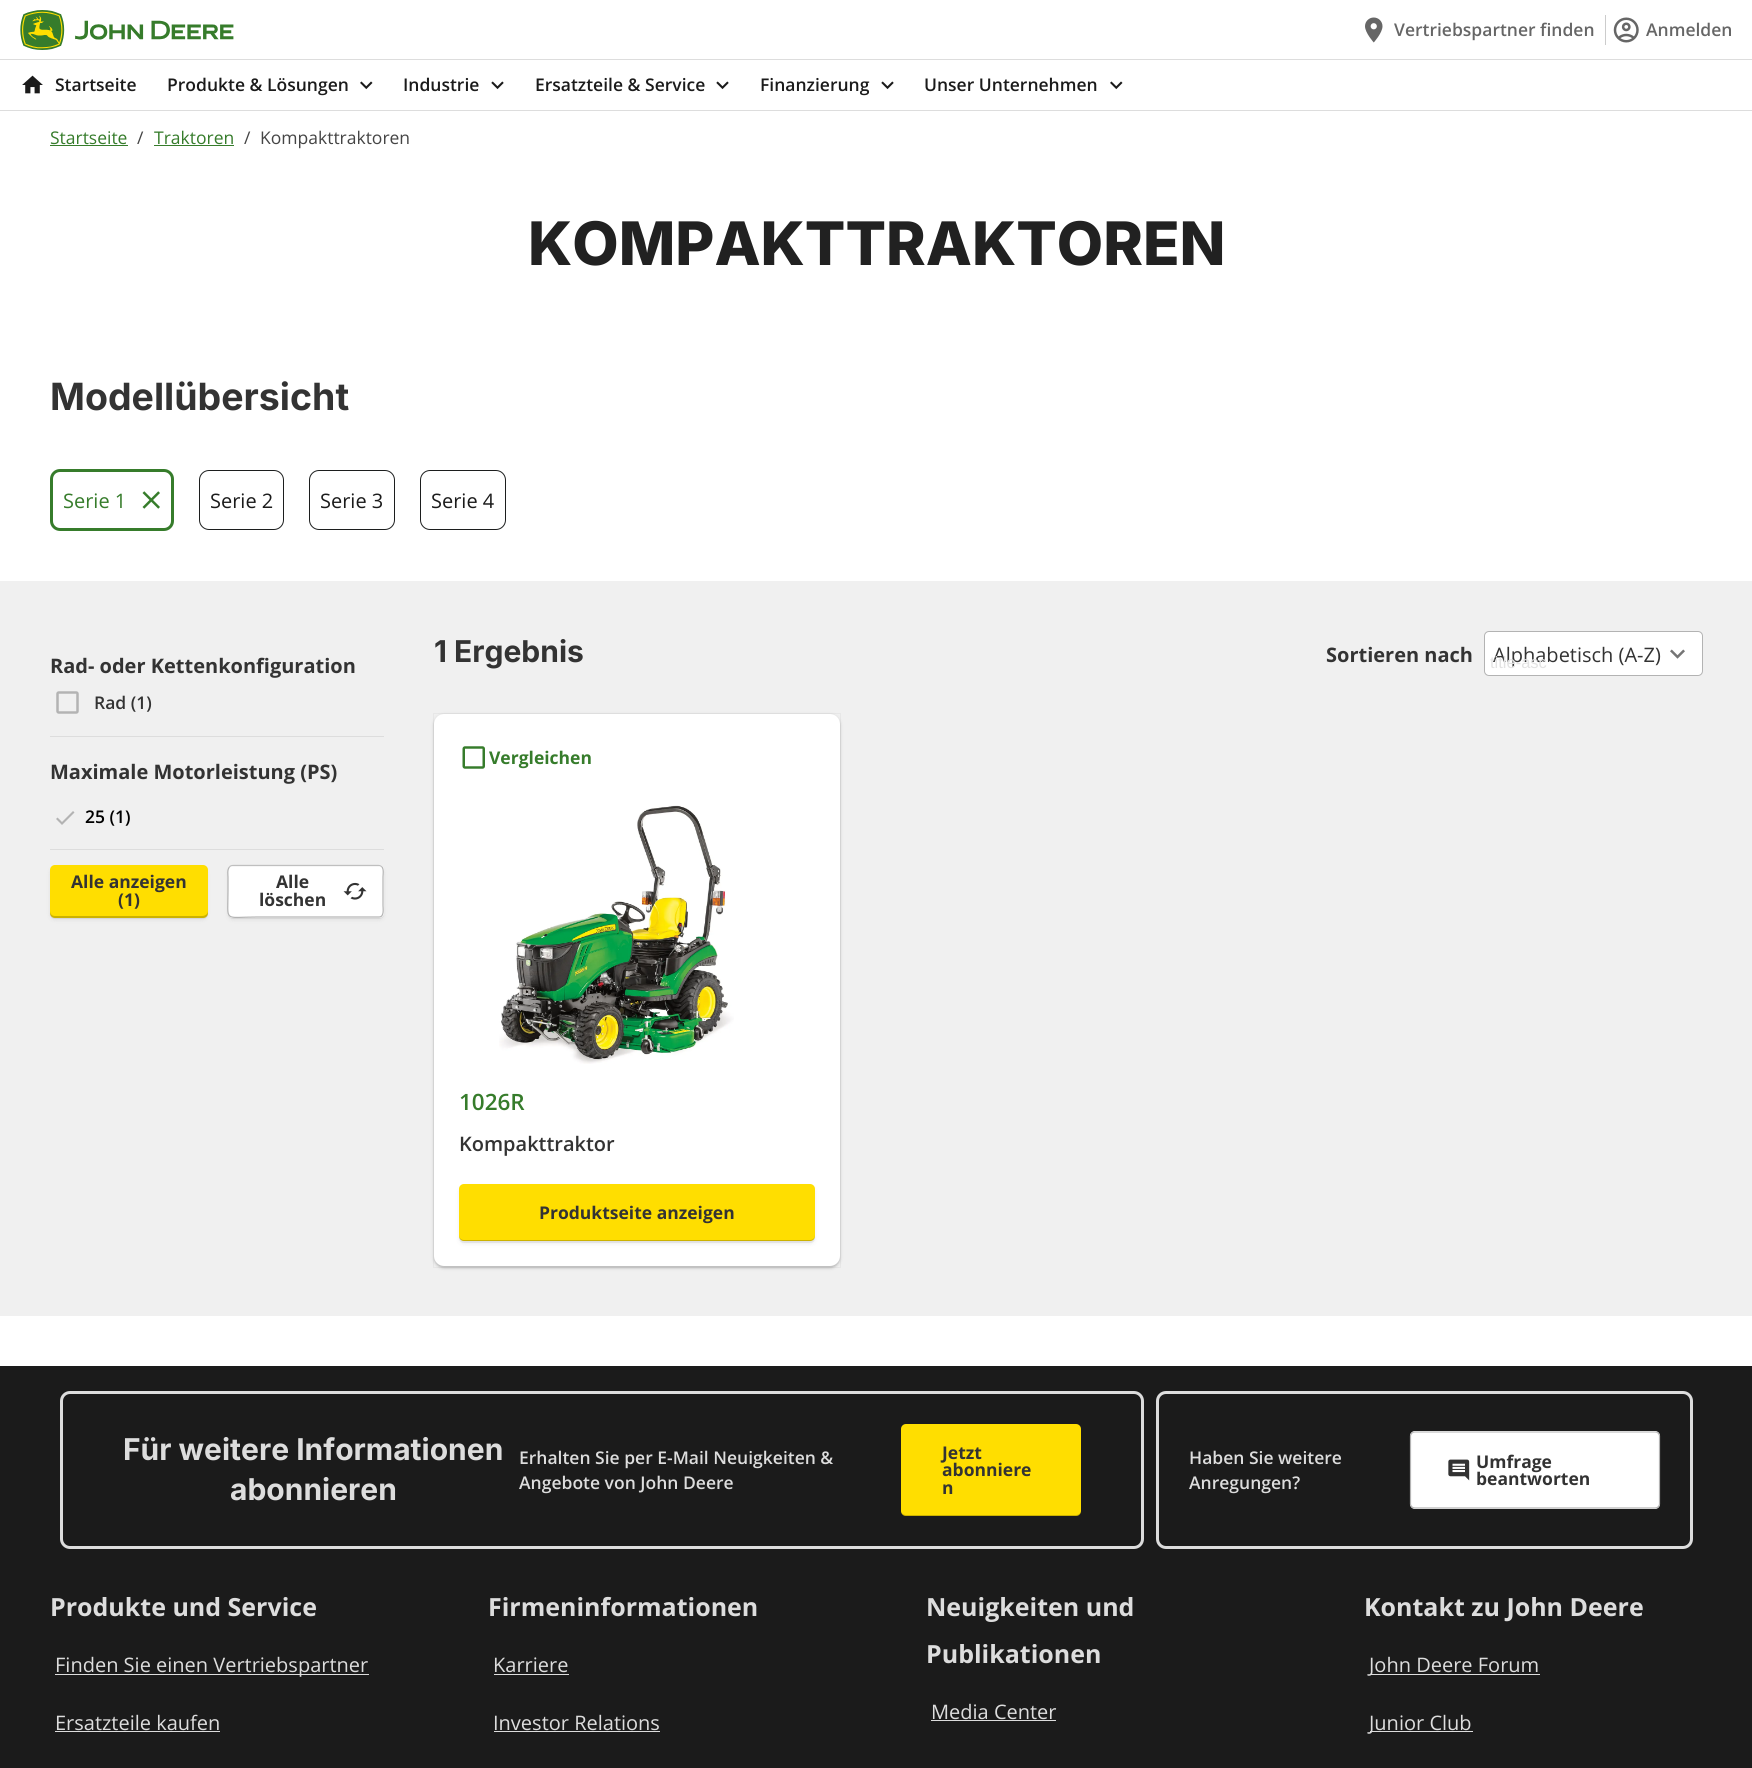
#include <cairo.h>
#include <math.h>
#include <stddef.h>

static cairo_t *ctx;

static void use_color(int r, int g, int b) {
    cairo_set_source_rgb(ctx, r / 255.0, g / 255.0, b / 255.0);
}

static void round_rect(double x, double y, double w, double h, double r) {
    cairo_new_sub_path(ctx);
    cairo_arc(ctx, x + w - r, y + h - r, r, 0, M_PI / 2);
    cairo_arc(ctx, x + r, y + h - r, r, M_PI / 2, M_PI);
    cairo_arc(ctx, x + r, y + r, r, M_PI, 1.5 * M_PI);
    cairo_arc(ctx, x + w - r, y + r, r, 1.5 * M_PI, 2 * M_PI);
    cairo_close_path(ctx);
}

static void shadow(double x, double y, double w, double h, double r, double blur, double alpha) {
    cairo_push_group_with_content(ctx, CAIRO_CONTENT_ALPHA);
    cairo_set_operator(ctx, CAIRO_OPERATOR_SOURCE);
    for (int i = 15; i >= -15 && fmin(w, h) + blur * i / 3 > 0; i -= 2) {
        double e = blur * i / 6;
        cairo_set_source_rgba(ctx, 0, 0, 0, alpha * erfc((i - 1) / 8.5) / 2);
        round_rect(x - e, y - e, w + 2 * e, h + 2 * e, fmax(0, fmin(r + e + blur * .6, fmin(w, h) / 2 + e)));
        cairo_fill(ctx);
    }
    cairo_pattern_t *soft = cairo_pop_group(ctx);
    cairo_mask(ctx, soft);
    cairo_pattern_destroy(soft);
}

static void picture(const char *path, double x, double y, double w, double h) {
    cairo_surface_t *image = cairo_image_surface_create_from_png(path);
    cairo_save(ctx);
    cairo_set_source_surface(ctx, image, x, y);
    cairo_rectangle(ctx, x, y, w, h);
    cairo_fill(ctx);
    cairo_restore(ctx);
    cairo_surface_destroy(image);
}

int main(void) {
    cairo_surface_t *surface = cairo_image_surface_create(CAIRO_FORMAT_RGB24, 1752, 1768);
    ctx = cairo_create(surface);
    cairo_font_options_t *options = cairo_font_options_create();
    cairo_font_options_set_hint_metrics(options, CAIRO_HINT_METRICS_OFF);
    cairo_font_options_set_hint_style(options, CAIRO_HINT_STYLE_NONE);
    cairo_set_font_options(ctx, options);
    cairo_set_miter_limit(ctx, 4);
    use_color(255, 255, 255);
    cairo_paint(ctx);
    use_color(221, 221, 221);
    cairo_rectangle(ctx, 0, 59, 1752, 1);
    cairo_fill(ctx);
    picture("img1.png", 20, 10, 214, 40);
    picture("img2.png", 1365, 17, 18, 26);
    cairo_select_font_face(ctx, "Open Sans SemiBold", CAIRO_FONT_SLANT_NORMAL, CAIRO_FONT_WEIGHT_NORMAL);
    cairo_set_font_size(ctx, 17.5);
    use_color(102, 102, 102);
    cairo_move_to(ctx, 1394, 36);
    cairo_show_text(ctx, "Vertriebspartner finden");
    use_color(204, 204, 204);
    cairo_rectangle(ctx, 1605, 15, 1, 30);
    cairo_fill(ctx);
    picture("img3.png", 1613, 17, 26, 26);
    use_color(102, 102, 102);
    cairo_move_to(ctx, 1646, 36);
    cairo_show_text(ctx, "Anmelden");
    use_color(221, 221, 221);
    cairo_rectangle(ctx, 0, 110, 1752, 1);
    cairo_fill(ctx);
    picture("img4.png", 22, 75, 21, 19);
    use_color(27, 27, 27);
    cairo_move_to(ctx, 55, 91);
    cairo_show_text(ctx, "Startseite");
    cairo_move_to(ctx, 167, 91);
    cairo_show_text(ctx, "Produkte & Lösungen");
    picture("img5.png", 360, 81, 13, 9);
    cairo_move_to(ctx, 403, 91);
    cairo_show_text(ctx, "Industrie");
    picture("img6.png", 491, 81, 13, 9);
    cairo_move_to(ctx, 535, 91);
    cairo_show_text(ctx, "Ersatzteile & Service");
    picture("img6.png", 716, 81, 13, 9);
    cairo_move_to(ctx, 760, 91);
    cairo_show_text(ctx, "Finanzierung");
    picture("img6.png", 881, 81, 13, 9);
    cairo_move_to(ctx, 924, 91);
    cairo_show_text(ctx, "Unser Unternehmen");
    picture("img5.png", 1110, 81, 13, 9);
    cairo_select_font_face(ctx, "Open Sans", CAIRO_FONT_SLANT_NORMAL, CAIRO_FONT_WEIGHT_NORMAL);
    use_color(54, 124, 43);
    cairo_move_to(ctx, 50, 144);
    cairo_show_text(ctx, "Startseite");
    cairo_rectangle(ctx, 50, 145, 78, 1);
    cairo_fill(ctx);
    use_color(69, 69, 69);
    cairo_move_to(ctx, 137, 144);
    cairo_show_text(ctx, "/");
    use_color(54, 124, 43);
    cairo_move_to(ctx, 154, 144);
    cairo_show_text(ctx, "Traktoren");
    cairo_rectangle(ctx, 154, 145, 80, 1);
    cairo_fill(ctx);
    use_color(69, 69, 69);
    cairo_move_to(ctx, 244, 144);
    cairo_show_text(ctx, "/");
    cairo_move_to(ctx, 260, 144);
    cairo_show_text(ctx, "Kompakttraktoren");
    cairo_select_font_face(ctx, "Inter ExtraBold", CAIRO_FONT_SLANT_NORMAL, CAIRO_FONT_WEIGHT_NORMAL);
    cairo_set_font_size(ctx, 60);
    use_color(33, 33, 33);
    cairo_move_to(ctx, 528, 265);
    cairo_show_text(ctx, "KOMPAKTTRAKTOREN");
    cairo_select_font_face(ctx, "Inter", CAIRO_FONT_SLANT_NORMAL, CAIRO_FONT_WEIGHT_BOLD);
    cairo_set_font_size(ctx, 37.5);
    use_color(51, 51, 51);
    cairo_move_to(ctx, 50, 410);
    cairo_show_text(ctx, "Modellübersicht");
    round_rect(51.5, 470.5, 121, 59, 8.5);
    use_color(54, 124, 43);
    cairo_set_line_width(ctx, 3);
    cairo_stroke(ctx);
    cairo_select_font_face(ctx, "Open Sans", CAIRO_FONT_SLANT_NORMAL, CAIRO_FONT_WEIGHT_NORMAL);
    cairo_set_font_size(ctx, 20);
    cairo_move_to(ctx, 63, 508);
    cairo_show_text(ctx, "Serie 1");
    picture("img7.png", 142, 491, 18, 18);
    round_rect(199.5, 470.5, 84, 59, 9.5);
    use_color(28, 30, 30);
    cairo_set_line_width(ctx, 1);
    cairo_stroke(ctx);
    use_color(27, 27, 27);
    cairo_move_to(ctx, 210, 508);
    cairo_show_text(ctx, "Serie 2");
    round_rect(309.5, 470.5, 85, 59, 9.5);
    use_color(28, 30, 30);
    cairo_stroke(ctx);
    use_color(27, 27, 27);
    cairo_move_to(ctx, 320, 508);
    cairo_show_text(ctx, "Serie 3");
    round_rect(420.5, 470.5, 85, 59, 9.5);
    use_color(28, 30, 30);
    cairo_stroke(ctx);
    use_color(27, 27, 27);
    cairo_move_to(ctx, 431, 508);
    cairo_show_text(ctx, "Serie 4");
    use_color(240, 240, 240);
    cairo_rectangle(ctx, 0, 581, 1752, 735);
    cairo_fill(ctx);
    use_color(221, 221, 221);
    cairo_rectangle(ctx, 50, 736, 334, 1);
    cairo_fill(ctx);
    cairo_select_font_face(ctx, "Open Sans", CAIRO_FONT_SLANT_NORMAL, CAIRO_FONT_WEIGHT_BOLD);
    use_color(51, 51, 51);
    cairo_move_to(ctx, 50, 673);
    cairo_show_text(ctx, "Rad- oder Kettenkonfiguration");
    picture("img8.png", 56, 691, 23, 23);
    cairo_select_font_face(ctx, "Open Sans SemiBold", CAIRO_FONT_SLANT_NORMAL, CAIRO_FONT_WEIGHT_NORMAL);
    cairo_set_font_size(ctx, 17.5);
    cairo_move_to(ctx, 94, 709);
    cairo_show_text(ctx, "Rad (1)");
    use_color(221, 221, 221);
    cairo_rectangle(ctx, 50, 849, 334, 1);
    cairo_fill(ctx);
    cairo_select_font_face(ctx, "Open Sans", CAIRO_FONT_SLANT_NORMAL, CAIRO_FONT_WEIGHT_BOLD);
    cairo_set_font_size(ctx, 20);
    use_color(51, 51, 51);
    cairo_move_to(ctx, 50, 779);
    cairo_show_text(ctx, "Maximale Motorleistung (PS)");
    use_color(179, 179, 179);
    cairo_new_path(ctx);
    cairo_move_to(ctx, 62, 822);
    cairo_line_to(ctx, 57.5, 817.5);
    cairo_line_to(ctx, 56, 819);
    cairo_line_to(ctx, 62, 825);
    cairo_line_to(ctx, 74.5, 812.5);
    cairo_line_to(ctx, 73, 811);
    cairo_close_path(ctx);
    cairo_fill(ctx);
    cairo_select_font_face(ctx, "Open Sans SemiBold", CAIRO_FONT_SLANT_NORMAL, CAIRO_FONT_WEIGHT_NORMAL);
    cairo_set_font_size(ctx, 17.5);
    use_color(0, 0, 0);
    cairo_move_to(ctx, 85, 823);
    cairo_show_text(ctx, "25 (1)");
    use_color(228, 228, 228);
    cairo_new_path(ctx);
    cairo_move_to(ctx, 50, 912);
    cairo_line_to(ctx, 50, 914);
    cairo_curve_to(ctx, 50, 917, 52, 919, 55, 919);
    cairo_line_to(ctx, 203, 919);
    cairo_curve_to(ctx, 206, 919, 208, 917, 208, 914);
    cairo_line_to(ctx, 208, 871);
    cairo_line_to(ctx, 207, 868);
    cairo_line_to(ctx, 208, 912);
    cairo_curve_to(ctx, 208, 915, 205, 918, 202, 918);
    cairo_line_to(ctx, 55, 918);
    cairo_curve_to(ctx, 52, 918, 50, 915, 50, 912);
    cairo_close_path(ctx);
    cairo_fill(ctx);
    use_color(0, 0, 0);
    shadow(51, 869, 155, 50, 4, 2.5, 0.1);
    use_color(255, 222, 0);
    round_rect(50, 865, 158, 53, 5);
    cairo_fill(ctx);
    cairo_set_source_rgba(ctx, 0, 0, 0, 0.2);
    cairo_new_path(ctx);
    cairo_move_to(ctx, 50, 911);
    cairo_line_to(ctx, 50, 913);
    cairo_curve_to(ctx, 50, 916, 52, 918, 55, 918);
    cairo_line_to(ctx, 203, 918);
    cairo_curve_to(ctx, 206, 918, 208, 916, 208, 913);
    cairo_line_to(ctx, 208, 911);
    cairo_curve_to(ctx, 208, 914, 205, 916, 202, 916);
    cairo_line_to(ctx, 55, 916);
    cairo_curve_to(ctx, 52, 916, 50, 914, 50, 911);
    cairo_close_path(ctx);
    cairo_fill(ctx);
    cairo_select_font_face(ctx, "Open Sans", CAIRO_FONT_SLANT_NORMAL, CAIRO_FONT_WEIGHT_BOLD);
    use_color(51, 51, 51);
    cairo_move_to(ctx, 71, 888);
    cairo_show_text(ctx, "Alle anzeigen");
    cairo_move_to(ctx, 118, 906);
    cairo_show_text(ctx, "(1)");
    use_color(228, 228, 228);
    cairo_new_path(ctx);
    cairo_move_to(ctx, 228, 915);
    cairo_curve_to(ctx, 228, 917, 231, 919, 233, 919);
    cairo_line_to(ctx, 379, 919);
    cairo_curve_to(ctx, 382, 919, 384, 917, 384, 914);
    cairo_line_to(ctx, 384, 869);
    cairo_line_to(ctx, 384, 912);
    cairo_curve_to(ctx, 384, 915, 382, 918, 379, 918);
    cairo_line_to(ctx, 232, 918);
    cairo_curve_to(ctx, 231, 918, 229, 916, 228, 915);
    cairo_close_path(ctx);
    cairo_fill(ctx);
    use_color(0, 0, 0);
    shadow(229, 869, 154, 50, 4, 2.5, 0.1);
    use_color(255, 255, 255);
    round_rect(228, 865, 156, 53, 5);
    cairo_fill(ctx);
    cairo_new_path(ctx);
    cairo_move_to(ctx, 229.5, 867);
    cairo_curve_to(ctx, 230, 866, 231.5, 865.5, 232.5, 865.5);
    cairo_line_to(ctx, 379, 865.5);
    cairo_curve_to(ctx, 380, 865.5, 381, 866, 382, 867);
    use_color(191, 191, 191);
    cairo_set_line_width(ctx, 1.2);
    cairo_stroke(ctx);
    cairo_new_path(ctx);
    cairo_move_to(ctx, 382, 867);
    cairo_curve_to(ctx, 384, 869.5, 383, 875, 383, 877);
    cairo_line_to(ctx, 383, 905.5);
    cairo_curve_to(ctx, 383, 908.5, 384.5, 917, 379, 917);
    cairo_line_to(ctx, 257, 917);
    cairo_curve_to(ctx, 223, 917, 228, 923, 228, 891);
    cairo_line_to(ctx, 228, 877);
    cairo_curve_to(ctx, 228, 875, 227, 869.5, 229.5, 867);
    use_color(179, 179, 179);
    cairo_stroke(ctx);
    use_color(51, 51, 51);
    cairo_move_to(ctx, 276, 888);
    cairo_show_text(ctx, "Alle");
    picture("img9.png", 343, 882, 24, 18);
    cairo_move_to(ctx, 259, 906);
    cairo_show_text(ctx, "löschen");
    cairo_select_font_face(ctx, "Inter", CAIRO_FONT_SLANT_NORMAL, CAIRO_FONT_WEIGHT_BOLD);
    cairo_set_font_size(ctx, 30);
    cairo_move_to(ctx, 434, 662);
    cairo_show_text(ctx, "1 Ergebnis");
    cairo_select_font_face(ctx, "Open Sans", CAIRO_FONT_SLANT_NORMAL, CAIRO_FONT_WEIGHT_BOLD);
    cairo_set_font_size(ctx, 20);
    cairo_move_to(ctx, 1326, 662);
    cairo_show_text(ctx, "Sortieren nach");
    use_color(255, 255, 255);
    round_rect(1484.5, 631.5, 218, 44, 4.5);
    cairo_fill_preserve(ctx);
    use_color(179, 179, 179);
    cairo_set_line_width(ctx, 1);
    cairo_stroke(ctx);
    cairo_select_font_face(ctx, "Open Sans", CAIRO_FONT_SLANT_NORMAL, CAIRO_FONT_WEIGHT_NORMAL);
    use_color(51, 51, 51);
    cairo_move_to(ctx, 1493, 662);
    cairo_show_text(ctx, "Alphabetisch (A-Z)");
    picture("img10.png", 1670, 649, 15, 10);
    cairo_select_font_face(ctx, "Liberation Sans", CAIRO_FONT_SLANT_NORMAL, CAIRO_FONT_WEIGHT_NORMAL);
    cairo_set_font_size(ctx, 16.5);
    use_color(227, 227, 227);
    cairo_move_to(ctx, 1490, 668);
    cairo_show_text(ctx, "title-asc");
    use_color(51, 51, 51);
    shadow(434, 715, 406, 553, 10, 2, 0.15);
    cairo_rectangle(ctx, 433.5, 713.5, 407, 554);
    cairo_set_source_rgba(ctx, 0.2, 0.2, 0.2, 0.05);
    cairo_stroke(ctx);
    use_color(27, 27, 27);
    shadow(434, 715, 406, 553, 10, 1, 0.15);
    use_color(255, 255, 255);
    round_rect(434, 714, 406, 552, 10);
    cairo_fill(ctx);
    picture("img11.png", 462, 746, 23, 23);
    cairo_select_font_face(ctx, "Open Sans", CAIRO_FONT_SLANT_NORMAL, CAIRO_FONT_WEIGHT_BOLD);
    cairo_set_font_size(ctx, 17.5);
    use_color(54, 124, 43);
    cairo_move_to(ctx, 489, 764);
    cairo_show_text(ctx, "Vergleichen");
    picture("img12.png", 499, 805, 235, 259);
    cairo_select_font_face(ctx, "Open Sans SemiBold", CAIRO_FONT_SLANT_NORMAL, CAIRO_FONT_WEIGHT_NORMAL);
    cairo_set_font_size(ctx, 22.5);
    cairo_move_to(ctx, 459, 1110);
    cairo_show_text(ctx, "1026R");
    cairo_set_font_size(ctx, 20);
    use_color(51, 51, 51);
    cairo_move_to(ctx, 459, 1151);
    cairo_show_text(ctx, "Kompakttraktor");
    use_color(242, 242, 242);
    cairo_new_path(ctx);
    cairo_move_to(ctx, 459, 1238);
    cairo_curve_to(ctx, 459, 1241, 461, 1243, 464, 1243);
    cairo_line_to(ctx, 810, 1243);
    cairo_curve_to(ctx, 813, 1243, 815, 1241, 815, 1238);
    cairo_line_to(ctx, 815, 1236);
    cairo_curve_to(ctx, 815, 1239, 813, 1241, 810, 1241);
    cairo_line_to(ctx, 464, 1241);
    cairo_curve_to(ctx, 462, 1241, 460, 1240, 459, 1238);
    cairo_close_path(ctx);
    cairo_fill(ctx);
    use_color(0, 0, 0);
    shadow(460, 1188, 354, 55, 4, 2.5, 0.1);
    use_color(255, 222, 0);
    round_rect(459, 1184, 356, 57, 5);
    cairo_fill(ctx);
    cairo_set_source_rgba(ctx, 0, 0, 0, 0.2);
    cairo_new_path(ctx);
    cairo_move_to(ctx, 459, 1235);
    cairo_line_to(ctx, 459, 1236);
    cairo_curve_to(ctx, 459, 1239, 461, 1241, 464, 1241);
    cairo_line_to(ctx, 810, 1241);
    cairo_curve_to(ctx, 813, 1241, 815, 1239, 815, 1236);
    cairo_line_to(ctx, 815, 1235);
    cairo_curve_to(ctx, 815, 1238, 813, 1240, 810, 1240);
    cairo_line_to(ctx, 464, 1240);
    cairo_curve_to(ctx, 461, 1240, 459, 1238, 459, 1235);
    cairo_close_path(ctx);
    cairo_fill(ctx);
    cairo_select_font_face(ctx, "Open Sans", CAIRO_FONT_SLANT_NORMAL, CAIRO_FONT_WEIGHT_BOLD);
    cairo_set_font_size(ctx, 17.5);
    use_color(51, 51, 51);
    cairo_move_to(ctx, 539, 1219);
    cairo_show_text(ctx, "Produktseite anzeigen");
    use_color(27, 27, 27);
    cairo_rectangle(ctx, 0, 1366, 1752, 402);
    cairo_fill(ctx);
    round_rect(61.5, 1392.5, 1081, 155, 8.5);
    use_color(221, 221, 221);
    cairo_set_line_width(ctx, 3);
    cairo_stroke(ctx);
    cairo_select_font_face(ctx, "Inter", CAIRO_FONT_SLANT_NORMAL, CAIRO_FONT_WEIGHT_BOLD);
    cairo_set_font_size(ctx, 30);
    cairo_move_to(ctx, 123, 1460);
    cairo_show_text(ctx, "Für weitere Informationen");
    cairo_move_to(ctx, 230, 1500);
    cairo_show_text(ctx, "abonnieren");
    cairo_select_font_face(ctx, "Open Sans SemiBold", CAIRO_FONT_SLANT_NORMAL, CAIRO_FONT_WEIGHT_NORMAL);
    cairo_set_font_size(ctx, 17.5);
    cairo_move_to(ctx, 519, 1464);
    cairo_show_text(ctx, "Erhalten Sie per E-Mail Neuigkeiten &");
    cairo_move_to(ctx, 519, 1489);
    cairo_show_text(ctx, "Angebote von John Deere");
    use_color(255, 222, 0);
    round_rect(901, 1424, 180, 92, 5);
    cairo_fill(ctx);
    cairo_set_source_rgba(ctx, 0, 0, 0, 0.2);
    cairo_new_path(ctx);
    cairo_move_to(ctx, 901, 1510);
    cairo_curve_to(ctx, 901, 1513, 903, 1516, 906, 1516);
    cairo_line_to(ctx, 1077, 1516);
    cairo_curve_to(ctx, 1080, 1515, 1081, 1513, 1081, 1510);
    cairo_curve_to(ctx, 1081, 1513, 1079, 1515, 1076, 1515);
    cairo_line_to(ctx, 906, 1515);
    cairo_curve_to(ctx, 903, 1515, 901, 1513, 901, 1510);
    cairo_close_path(ctx);
    cairo_fill(ctx);
    cairo_select_font_face(ctx, "Open Sans", CAIRO_FONT_SLANT_NORMAL, CAIRO_FONT_WEIGHT_BOLD);
    use_color(51, 51, 51);
    cairo_move_to(ctx, 942, 1459);
    cairo_show_text(ctx, "Jetzt");
    cairo_move_to(ctx, 942, 1476);
    cairo_show_text(ctx, "abonniere");
    cairo_move_to(ctx, 942, 1494);
    cairo_show_text(ctx, "n");
    round_rect(1157.5, 1392.5, 534, 155, 8.5);
    use_color(221, 221, 221);
    cairo_stroke(ctx);
    cairo_select_font_face(ctx, "Open Sans SemiBold", CAIRO_FONT_SLANT_NORMAL, CAIRO_FONT_WEIGHT_NORMAL);
    cairo_move_to(ctx, 1189, 1464);
    cairo_show_text(ctx, "Haben Sie weitere");
    cairo_move_to(ctx, 1189, 1489);
    cairo_show_text(ctx, "Anregungen?");
    use_color(255, 255, 255);
    round_rect(1410, 1431, 250, 78, 5);
    cairo_fill(ctx);
    cairo_new_path(ctx);
    cairo_move_to(ctx, 1412, 1433);
    cairo_curve_to(ctx, 1412.5, 1432.5, 1414, 1432, 1415, 1432);
    cairo_line_to(ctx, 1655, 1432);
    cairo_curve_to(ctx, 1656, 1432, 1657.5, 1432.5, 1658, 1433);
    use_color(191, 191, 191);
    cairo_set_line_width(ctx, 1.2);
    cairo_stroke(ctx);
    cairo_new_path(ctx);
    cairo_move_to(ctx, 1658, 1433);
    cairo_curve_to(ctx, 1659, 1434, 1659.5, 1435, 1659.5, 1436);
    cairo_line_to(ctx, 1659.5, 1504);
    cairo_curve_to(ctx, 1659.5, 1505, 1659, 1506, 1658, 1507);
    cairo_curve_to(ctx, 1657.5, 1507.5, 1656, 1508, 1655, 1508);
    cairo_line_to(ctx, 1415, 1508);
    cairo_curve_to(ctx, 1414, 1508, 1412.5, 1507.5, 1412, 1507);
    cairo_curve_to(ctx, 1411, 1506, 1410.5, 1505, 1410.5, 1504);
    cairo_line_to(ctx, 1410.5, 1436);
    cairo_curve_to(ctx, 1410.5, 1435, 1411, 1434, 1412, 1433);
    use_color(179, 179, 179);
    cairo_stroke(ctx);
    picture("img13.png", 1448, 1459, 22, 22);
    cairo_select_font_face(ctx, "Open Sans", CAIRO_FONT_SLANT_NORMAL, CAIRO_FONT_WEIGHT_BOLD);
    use_color(51, 51, 51);
    cairo_move_to(ctx, 1476, 1468);
    cairo_show_text(ctx, "Umfrage");
    cairo_move_to(ctx, 1476, 1485);
    cairo_show_text(ctx, "beantworten");
    cairo_set_font_size(ctx, 25);
    use_color(221, 221, 221);
    cairo_move_to(ctx, 50, 1616);
    cairo_show_text(ctx, "Produkte und Service");
    cairo_rectangle(ctx, 55, 1674, 314, 1);
    cairo_fill(ctx);
    cairo_select_font_face(ctx, "Open Sans", CAIRO_FONT_SLANT_NORMAL, CAIRO_FONT_WEIGHT_NORMAL);
    cairo_set_font_size(ctx, 20);
    cairo_move_to(ctx, 55, 1672);
    cairo_show_text(ctx, "Finden Sie einen Vertriebspartner");
    cairo_move_to(ctx, 55, 1730);
    cairo_show_text(ctx, "Ersatzteile kaufen");
    cairo_rectangle(ctx, 55, 1731, 165, 1);
    cairo_fill(ctx);
    cairo_select_font_face(ctx, "Open Sans", CAIRO_FONT_SLANT_NORMAL, CAIRO_FONT_WEIGHT_BOLD);
    cairo_set_font_size(ctx, 25);
    cairo_move_to(ctx, 488, 1616);
    cairo_show_text(ctx, "Firmeninformationen");
    cairo_select_font_face(ctx, "Open Sans", CAIRO_FONT_SLANT_NORMAL, CAIRO_FONT_WEIGHT_NORMAL);
    cairo_set_font_size(ctx, 20);
    cairo_move_to(ctx, 493, 1672);
    cairo_show_text(ctx, "Karriere");
    cairo_rectangle(ctx, 494, 1674, 75, 1);
    cairo_fill(ctx);
    cairo_move_to(ctx, 493, 1730);
    cairo_show_text(ctx, "Investor Relations");
    cairo_rectangle(ctx, 494, 1731, 166, 1);
    cairo_fill(ctx);
    cairo_select_font_face(ctx, "Open Sans", CAIRO_FONT_SLANT_NORMAL, CAIRO_FONT_WEIGHT_BOLD);
    cairo_set_font_size(ctx, 25);
    cairo_move_to(ctx, 926, 1616);
    cairo_show_text(ctx, "Neuigkeiten und");
    cairo_move_to(ctx, 926, 1663);
    cairo_show_text(ctx, "Publikationen");
    cairo_select_font_face(ctx, "Open Sans", CAIRO_FONT_SLANT_NORMAL, CAIRO_FONT_WEIGHT_NORMAL);
    cairo_set_font_size(ctx, 20);
    cairo_move_to(ctx, 931, 1719);
    cairo_show_text(ctx, "Media Center");
    cairo_rectangle(ctx, 931, 1720, 125, 1);
    cairo_fill(ctx);
    cairo_select_font_face(ctx, "Open Sans", CAIRO_FONT_SLANT_NORMAL, CAIRO_FONT_WEIGHT_BOLD);
    cairo_set_font_size(ctx, 25);
    cairo_move_to(ctx, 1364, 1616);
    cairo_show_text(ctx, "Kontakt zu John Deere");
    cairo_rectangle(ctx, 1370, 1674, 170, 1);
    cairo_fill(ctx);
    cairo_select_font_face(ctx, "Open Sans", CAIRO_FONT_SLANT_NORMAL, CAIRO_FONT_WEIGHT_NORMAL);
    cairo_set_font_size(ctx, 20);
    cairo_move_to(ctx, 1369, 1672);
    cairo_show_text(ctx, "John Deere Forum");
    cairo_rectangle(ctx, 1370, 1731, 103, 1);
    cairo_fill(ctx);
    cairo_move_to(ctx, 1369, 1730);
    cairo_show_text(ctx, "Junior Club");
    cairo_surface_write_to_png(surface, "result.png");
    cairo_font_options_destroy(options);
    cairo_destroy(ctx);
    cairo_surface_destroy(surface);
    return 0;
}
